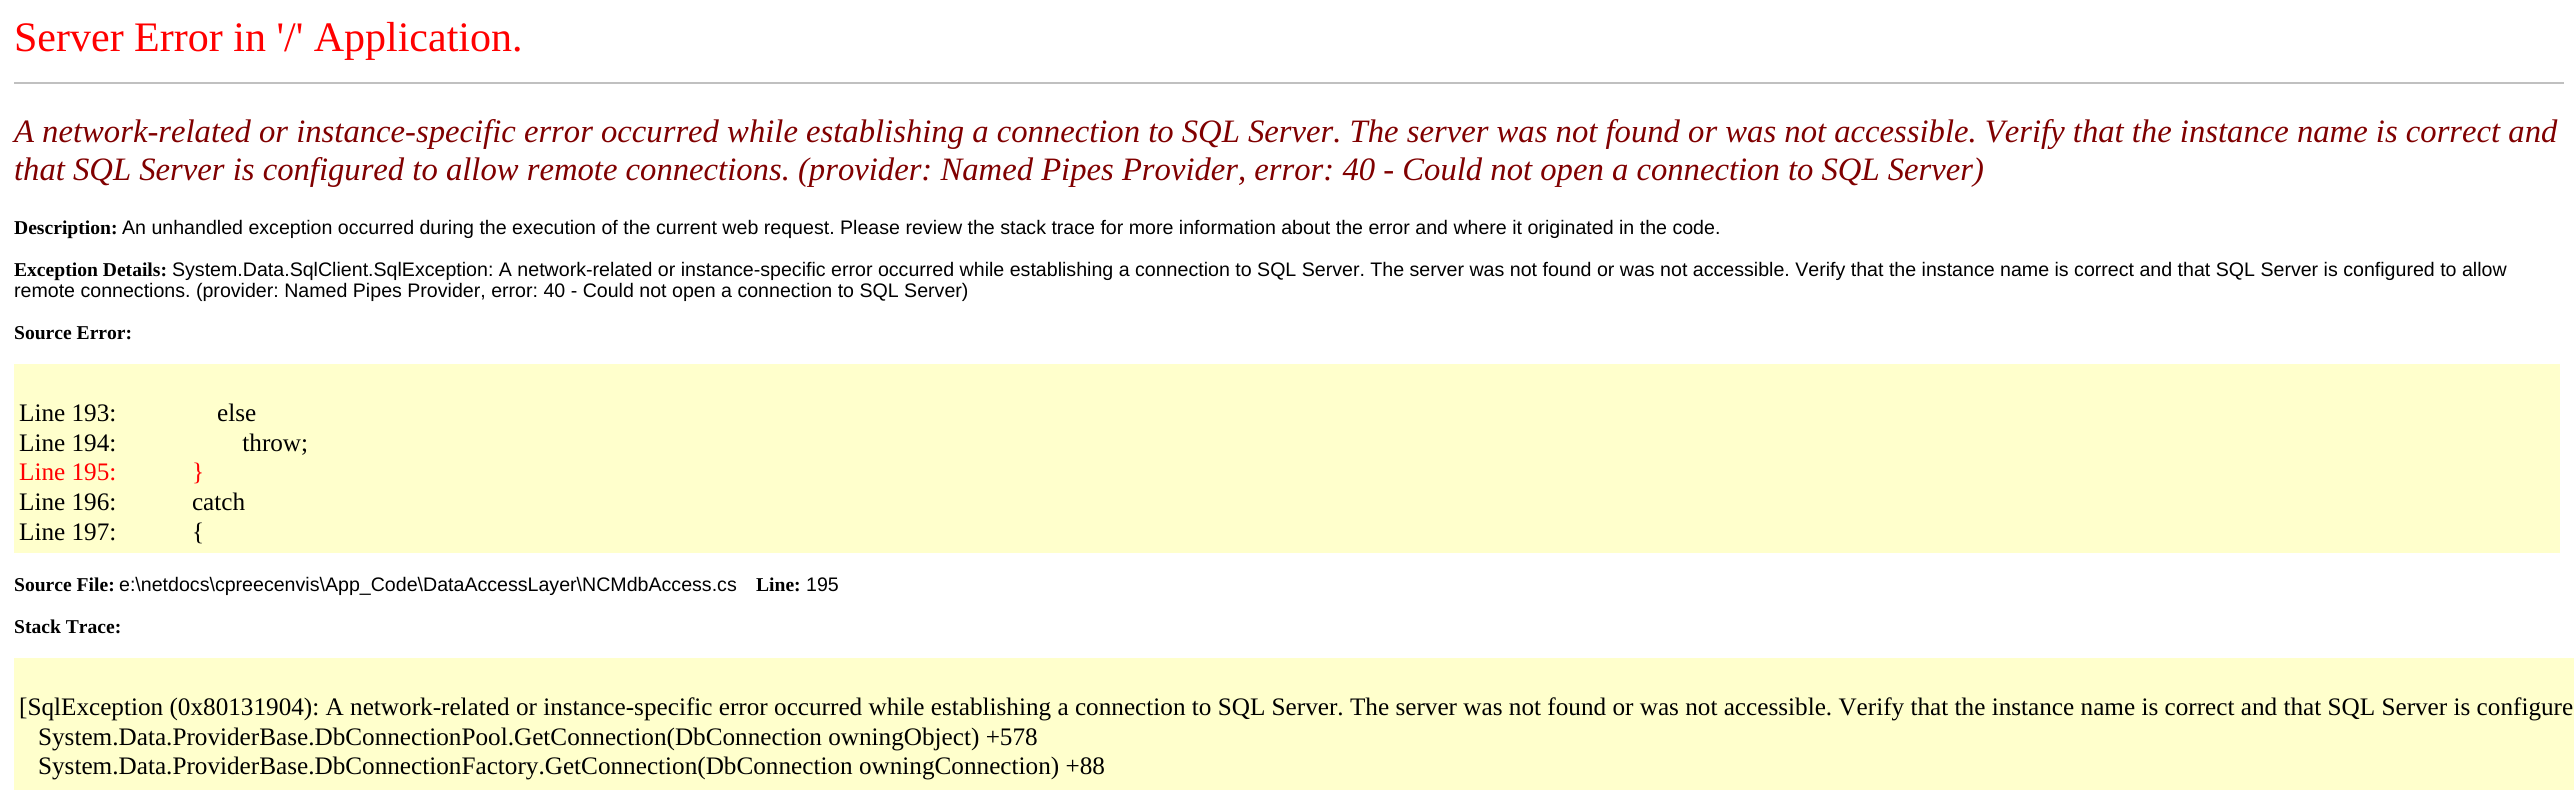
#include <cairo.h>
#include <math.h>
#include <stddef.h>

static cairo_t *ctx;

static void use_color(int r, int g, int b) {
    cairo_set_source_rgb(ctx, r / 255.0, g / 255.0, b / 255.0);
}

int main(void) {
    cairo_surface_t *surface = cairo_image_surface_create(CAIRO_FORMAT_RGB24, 2574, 790);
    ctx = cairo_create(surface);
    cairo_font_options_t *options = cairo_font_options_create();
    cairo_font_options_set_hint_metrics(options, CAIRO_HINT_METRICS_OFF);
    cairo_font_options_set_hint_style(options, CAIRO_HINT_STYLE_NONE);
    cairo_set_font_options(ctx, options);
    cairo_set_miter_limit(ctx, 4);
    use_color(255, 255, 255);
    cairo_paint(ctx);
    cairo_select_font_face(ctx, "Liberation Serif", CAIRO_FONT_SLANT_NORMAL, CAIRO_FONT_WEIGHT_NORMAL);
    cairo_set_font_size(ctx, 42);
    use_color(255, 0, 0);
    cairo_move_to(ctx, 14, 51);
    cairo_show_text(ctx, "Server Error in '/' Application.");
    use_color(192, 192, 192);
    cairo_rectangle(ctx, 14, 82, 2550, 2);
    cairo_fill(ctx);
    cairo_select_font_face(ctx, "Liberation Serif", CAIRO_FONT_SLANT_ITALIC, CAIRO_FONT_WEIGHT_NORMAL);
    cairo_set_font_size(ctx, 32.67);
    use_color(128, 0, 0);
    cairo_move_to(ctx, 14, 142);
    cairo_show_text(ctx, "A network-related or instance-specific error occurred while establishing a connection to SQL Server. The server was not found or was not accessible. Verify that the instance name is correct and");
    cairo_move_to(ctx, 14, 180);
    cairo_show_text(ctx, "that SQL Server is configured to allow remote connections. (provider: Named Pipes Provider, error: 40 - Could not open a connection to SQL Server)");
    cairo_select_font_face(ctx, "Liberation Serif", CAIRO_FONT_SLANT_NORMAL, CAIRO_FONT_WEIGHT_BOLD);
    cairo_set_font_size(ctx, 19.6);
    use_color(0, 0, 0);
    cairo_move_to(ctx, 14, 234);
    cairo_show_text(ctx, "Description:");
    cairo_select_font_face(ctx, "Liberation Sans", CAIRO_FONT_SLANT_NORMAL, CAIRO_FONT_WEIGHT_NORMAL);
    cairo_move_to(ctx, 122, 234);
    cairo_show_text(ctx, "An unhandled exception occurred during the execution of the current web request. Please review the stack trace for more information about the error and where it originated in the code.");
    cairo_select_font_face(ctx, "Liberation Serif", CAIRO_FONT_SLANT_NORMAL, CAIRO_FONT_WEIGHT_BOLD);
    cairo_move_to(ctx, 14, 276);
    cairo_show_text(ctx, "Exception Details:");
    cairo_select_font_face(ctx, "Liberation Sans", CAIRO_FONT_SLANT_NORMAL, CAIRO_FONT_WEIGHT_NORMAL);
    cairo_move_to(ctx, 172, 276);
    cairo_show_text(ctx, "System.Data.SqlClient.SqlException: A network-related or instance-specific error occurred while establishing a connection to SQL Server. The server was not found or was not accessible. Verify that the instance name is correct and that SQL Server is configured to allow");
    cairo_move_to(ctx, 14, 297);
    cairo_show_text(ctx, "remote connections. (provider: Named Pipes Provider, error: 40 - Could not open a connection to SQL Server)");
    cairo_select_font_face(ctx, "Liberation Serif", CAIRO_FONT_SLANT_NORMAL, CAIRO_FONT_WEIGHT_BOLD);
    cairo_move_to(ctx, 14, 339);
    cairo_show_text(ctx, "Source Error:");
    use_color(255, 255, 204);
    cairo_rectangle(ctx, 14, 364, 2546, 189);
    cairo_fill(ctx);
    cairo_select_font_face(ctx, "Liberation Serif", CAIRO_FONT_SLANT_NORMAL, CAIRO_FONT_WEIGHT_NORMAL);
    cairo_set_font_size(ctx, 25.2);
    use_color(0, 0, 0);
    cairo_move_to(ctx, 19, 421);
    cairo_show_text(ctx, "Line 193:                else");
    cairo_move_to(ctx, 19, 451);
    cairo_show_text(ctx, "Line 194:                    throw;");
    use_color(255, 0, 0);
    cairo_move_to(ctx, 19, 480);
    cairo_show_text(ctx, "Line 195:            }");
    use_color(0, 0, 0);
    cairo_move_to(ctx, 19, 510);
    cairo_show_text(ctx, "Line 196:            catch");
    cairo_move_to(ctx, 19, 540);
    cairo_show_text(ctx, "Line 197:            {");
    cairo_select_font_face(ctx, "Liberation Serif", CAIRO_FONT_SLANT_NORMAL, CAIRO_FONT_WEIGHT_BOLD);
    cairo_set_font_size(ctx, 19.6);
    cairo_move_to(ctx, 14, 591);
    cairo_show_text(ctx, "Source File:");
    cairo_select_font_face(ctx, "Liberation Sans", CAIRO_FONT_SLANT_NORMAL, CAIRO_FONT_WEIGHT_NORMAL);
    cairo_move_to(ctx, 119, 591);
    cairo_show_text(ctx, "e:\\netdocs\\cpreecenvis\\App_Code\\DataAccessLayer\\NCMdbAccess.cs");
    cairo_select_font_face(ctx, "Liberation Serif", CAIRO_FONT_SLANT_NORMAL, CAIRO_FONT_WEIGHT_BOLD);
    cairo_move_to(ctx, 756, 591);
    cairo_show_text(ctx, "Line:");
    cairo_select_font_face(ctx, "Liberation Sans", CAIRO_FONT_SLANT_NORMAL, CAIRO_FONT_WEIGHT_NORMAL);
    cairo_move_to(ctx, 806, 591);
    cairo_show_text(ctx, "195");
    cairo_select_font_face(ctx, "Liberation Serif", CAIRO_FONT_SLANT_NORMAL, CAIRO_FONT_WEIGHT_BOLD);
    cairo_move_to(ctx, 14, 633);
    cairo_show_text(ctx, "Stack Trace:");
    use_color(255, 255, 204);
    cairo_rectangle(ctx, 14, 658, 2560, 132);
    cairo_fill(ctx);
    cairo_select_font_face(ctx, "Liberation Serif", CAIRO_FONT_SLANT_NORMAL, CAIRO_FONT_WEIGHT_NORMAL);
    cairo_set_font_size(ctx, 25.2);
    use_color(0, 0, 0);
    cairo_move_to(ctx, 19, 715);
    cairo_show_text(ctx, "[SqlException (0x80131904): A network-related or instance-specific error occurred while establishing a connection to SQL Server. The server was not found or was not accessible. Verify that the instance name is correct and that SQL Server is configure");
    cairo_move_to(ctx, 38, 745);
    cairo_show_text(ctx, "System.Data.ProviderBase.DbConnectionPool.GetConnection(DbConnection owningObject) +578");
    cairo_move_to(ctx, 38, 774);
    cairo_show_text(ctx, "System.Data.ProviderBase.DbConnectionFactory.GetConnection(DbConnection owningConnection) +88");
    cairo_surface_write_to_png(surface, "result.png");
    cairo_font_options_destroy(options);
    cairo_destroy(ctx);
    cairo_surface_destroy(surface);
    return 0;
}
